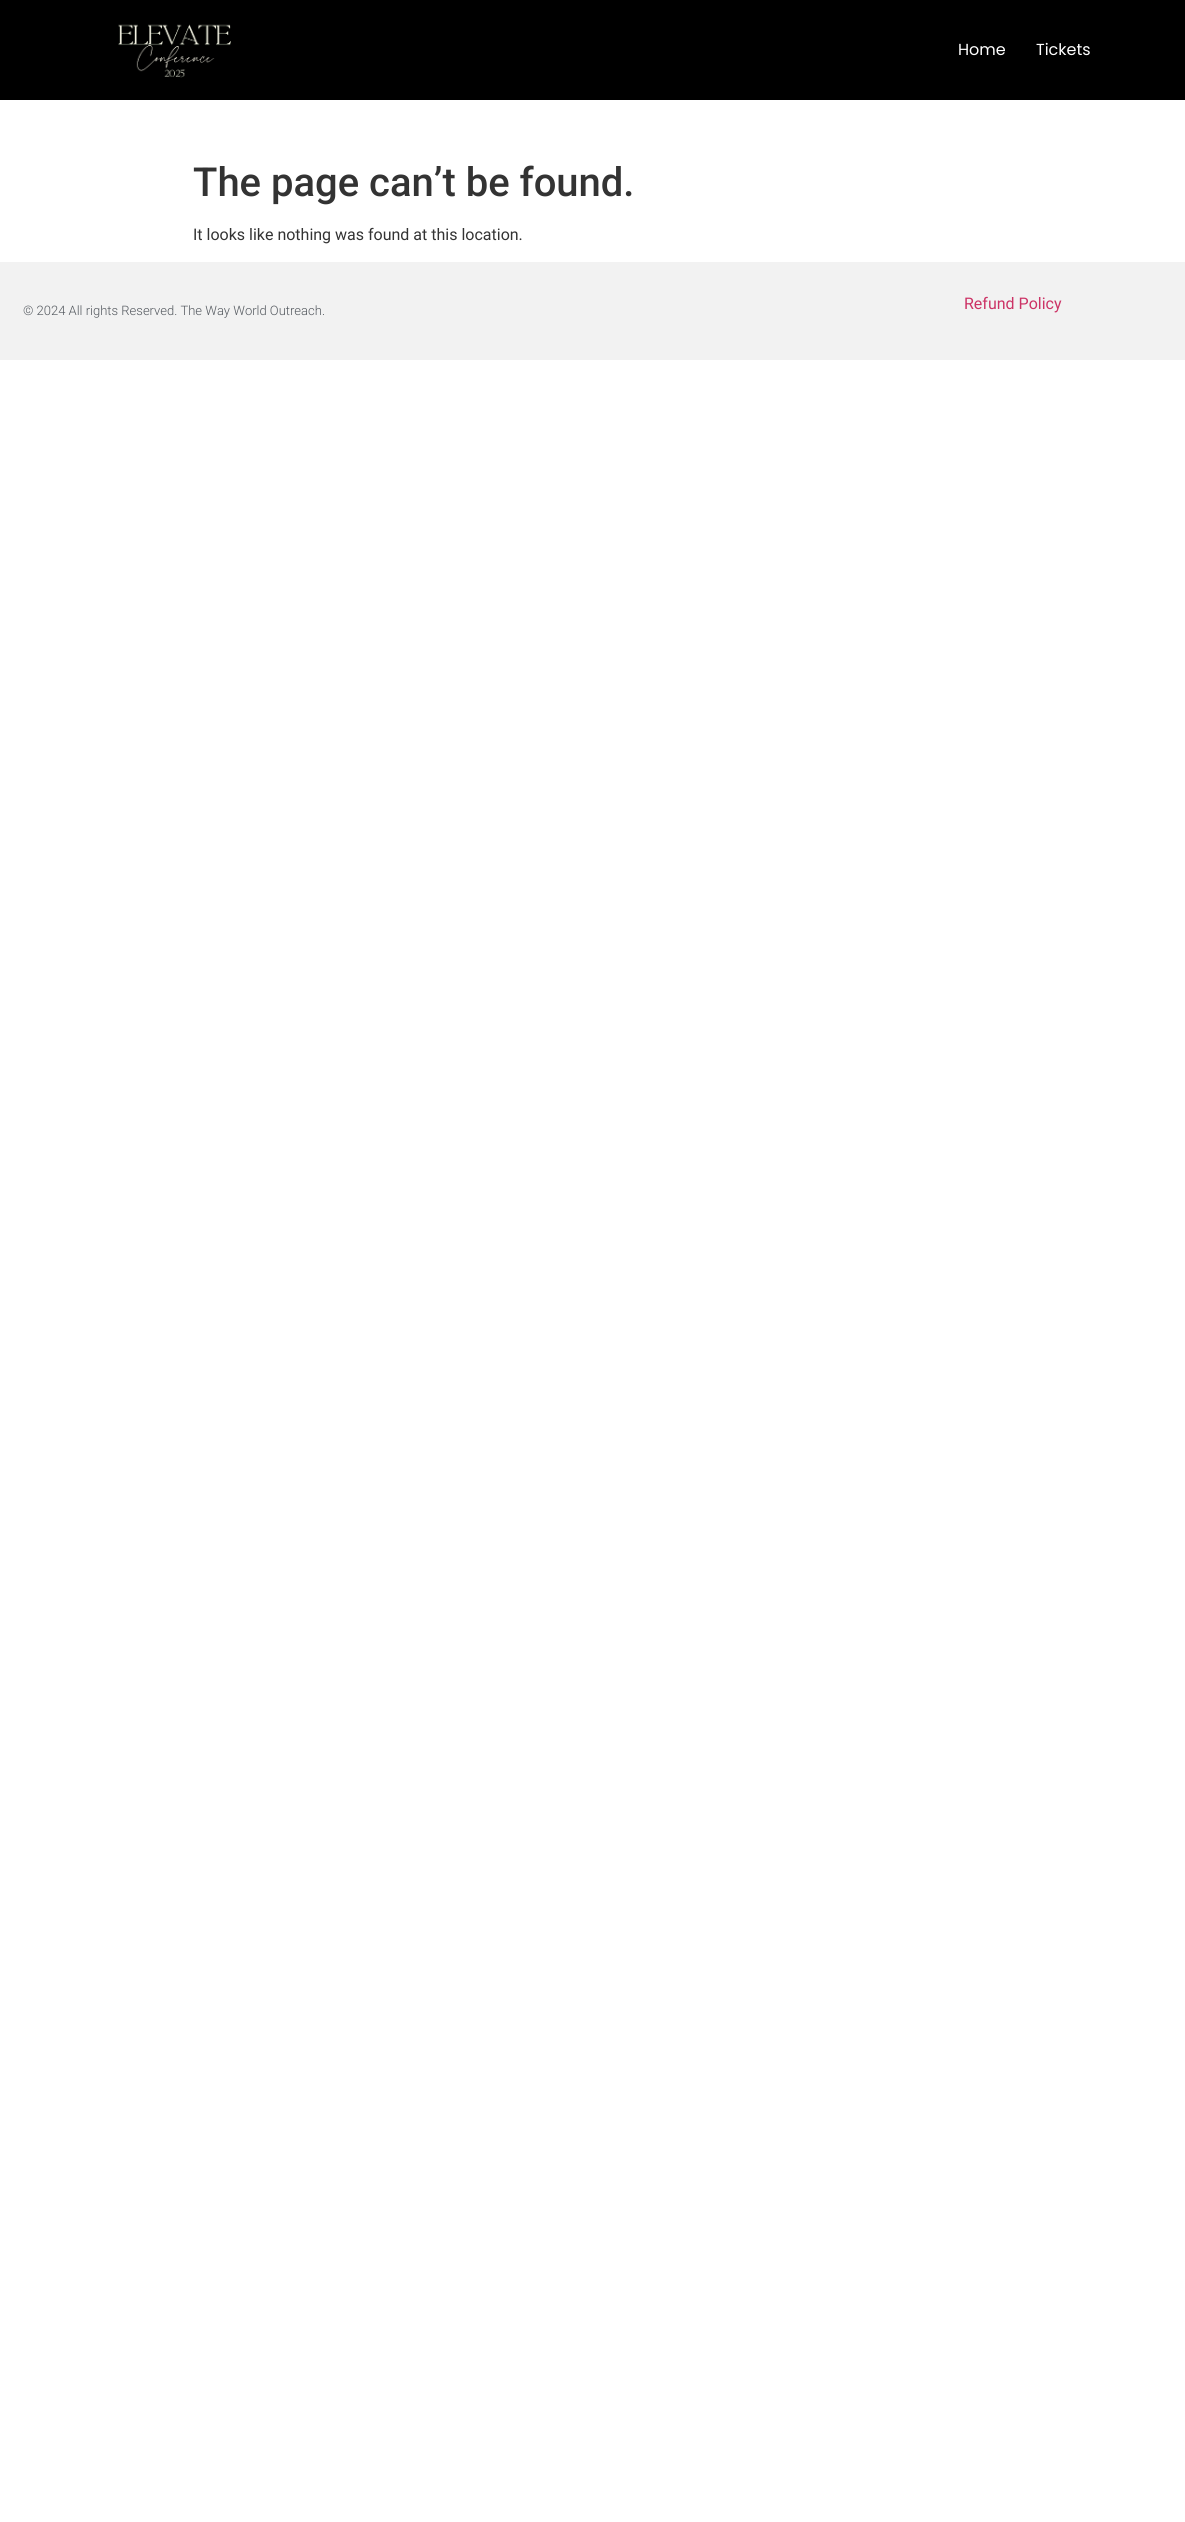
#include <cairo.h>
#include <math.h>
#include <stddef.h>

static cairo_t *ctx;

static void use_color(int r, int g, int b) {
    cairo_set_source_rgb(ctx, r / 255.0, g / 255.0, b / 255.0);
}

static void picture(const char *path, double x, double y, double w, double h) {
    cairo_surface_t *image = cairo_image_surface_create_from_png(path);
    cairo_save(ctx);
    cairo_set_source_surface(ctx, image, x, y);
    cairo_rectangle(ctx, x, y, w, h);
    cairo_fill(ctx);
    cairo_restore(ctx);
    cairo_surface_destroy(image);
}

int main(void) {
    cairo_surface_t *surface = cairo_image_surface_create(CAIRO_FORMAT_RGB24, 1185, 2522);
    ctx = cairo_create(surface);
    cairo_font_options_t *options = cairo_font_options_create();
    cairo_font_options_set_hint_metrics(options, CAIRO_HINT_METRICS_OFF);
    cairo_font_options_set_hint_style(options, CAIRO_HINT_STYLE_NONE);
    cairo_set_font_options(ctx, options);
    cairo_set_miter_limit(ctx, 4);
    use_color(255, 255, 255);
    cairo_paint(ctx);
    use_color(0, 0, 0);
    cairo_rectangle(ctx, 0, 0, 1185, 100);
    cairo_fill(ctx);
    picture("img1.png", 118, 24, 113, 54);
    cairo_select_font_face(ctx, "Poppins", CAIRO_FONT_SLANT_NORMAL, CAIRO_FONT_WEIGHT_NORMAL);
    cairo_set_font_size(ctx, 16);
    use_color(255, 255, 255);
    cairo_move_to(ctx, 958, 55);
    cairo_show_text(ctx, "Home");
    cairo_move_to(ctx, 1036, 55);
    cairo_show_text(ctx, "Tickets");
    cairo_select_font_face(ctx, "Roboto Medium", CAIRO_FONT_SLANT_NORMAL, CAIRO_FONT_WEIGHT_NORMAL);
    cairo_set_font_size(ctx, 40);
    use_color(51, 51, 51);
    cairo_move_to(ctx, 193, 196);
    cairo_show_text(ctx, "The page can’t be found.");
    cairo_select_font_face(ctx, "Roboto", CAIRO_FONT_SLANT_NORMAL, CAIRO_FONT_WEIGHT_NORMAL);
    cairo_set_font_size(ctx, 16);
    cairo_move_to(ctx, 193, 240);
    cairo_show_text(ctx, "It looks like nothing was found at this location.");
    use_color(242, 242, 242);
    cairo_rectangle(ctx, 0, 262, 1185, 98);
    cairo_fill(ctx);
    cairo_select_font_face(ctx, "Roboto Light", CAIRO_FONT_SLANT_NORMAL, CAIRO_FONT_WEIGHT_NORMAL);
    cairo_set_font_size(ctx, 13);
    use_color(84, 89, 95);
    cairo_move_to(ctx, 23, 315);
    cairo_show_text(ctx, "© 2024 All rights Reserved. The Way World Outreach.");
    cairo_select_font_face(ctx, "Roboto", CAIRO_FONT_SLANT_NORMAL, CAIRO_FONT_WEIGHT_NORMAL);
    cairo_set_font_size(ctx, 16);
    use_color(204, 51, 102);
    cairo_move_to(ctx, 964, 309);
    cairo_show_text(ctx, "Refund Policy");
    cairo_surface_write_to_png(surface, "result.png");
    cairo_font_options_destroy(options);
    cairo_destroy(ctx);
    cairo_surface_destroy(surface);
    return 0;
}
